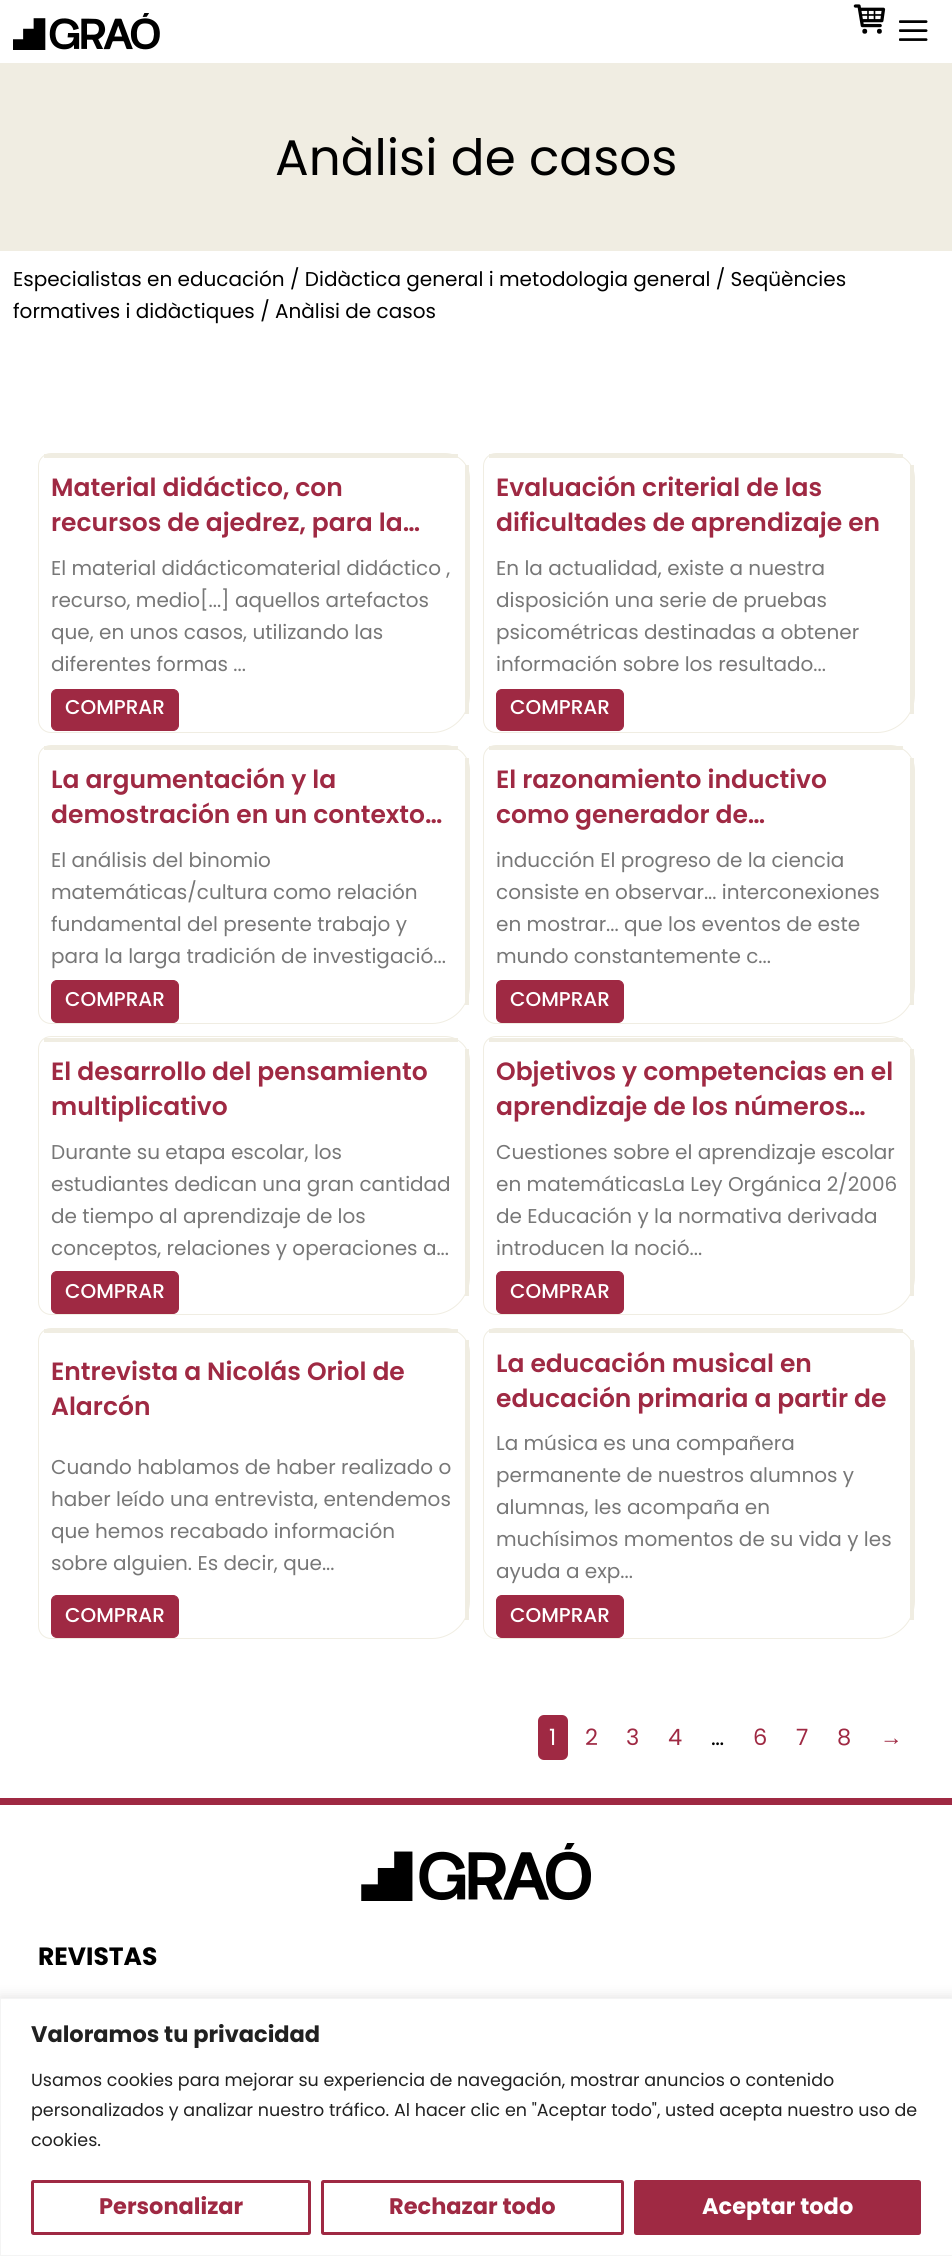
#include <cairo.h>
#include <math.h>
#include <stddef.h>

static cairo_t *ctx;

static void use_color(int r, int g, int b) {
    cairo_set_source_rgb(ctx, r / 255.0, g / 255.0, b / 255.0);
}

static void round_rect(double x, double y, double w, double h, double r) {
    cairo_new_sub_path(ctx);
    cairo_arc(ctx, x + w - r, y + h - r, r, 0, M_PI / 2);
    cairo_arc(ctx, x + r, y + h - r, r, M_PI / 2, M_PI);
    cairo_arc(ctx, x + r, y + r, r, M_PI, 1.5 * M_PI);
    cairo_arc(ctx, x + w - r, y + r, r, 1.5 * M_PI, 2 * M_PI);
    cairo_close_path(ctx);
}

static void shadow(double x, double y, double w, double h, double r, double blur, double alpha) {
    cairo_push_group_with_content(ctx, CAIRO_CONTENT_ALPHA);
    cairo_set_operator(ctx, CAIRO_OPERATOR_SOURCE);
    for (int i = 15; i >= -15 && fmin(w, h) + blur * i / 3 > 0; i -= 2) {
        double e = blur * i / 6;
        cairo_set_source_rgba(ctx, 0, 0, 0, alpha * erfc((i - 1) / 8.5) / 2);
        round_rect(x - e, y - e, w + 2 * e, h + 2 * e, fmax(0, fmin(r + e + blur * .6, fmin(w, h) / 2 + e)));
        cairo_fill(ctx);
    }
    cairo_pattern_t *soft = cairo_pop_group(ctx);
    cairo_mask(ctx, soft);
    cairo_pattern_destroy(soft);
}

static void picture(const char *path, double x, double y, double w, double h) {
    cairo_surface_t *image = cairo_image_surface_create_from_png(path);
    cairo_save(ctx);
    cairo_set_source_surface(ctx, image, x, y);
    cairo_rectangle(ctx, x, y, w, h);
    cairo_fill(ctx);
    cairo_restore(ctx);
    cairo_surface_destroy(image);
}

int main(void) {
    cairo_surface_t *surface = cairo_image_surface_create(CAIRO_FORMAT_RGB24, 952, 2256);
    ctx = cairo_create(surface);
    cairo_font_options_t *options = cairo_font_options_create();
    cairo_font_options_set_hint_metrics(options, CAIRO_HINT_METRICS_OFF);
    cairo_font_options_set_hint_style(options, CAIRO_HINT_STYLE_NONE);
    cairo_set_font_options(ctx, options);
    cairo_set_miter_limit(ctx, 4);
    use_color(255, 255, 255);
    cairo_paint(ctx);
    picture("img1.png", 13, 13, 147, 37);
    picture("img2.png", 853, 4, 33, 30);
    picture("img3.png", 899, 20, 29, 21);
    use_color(240, 237, 226);
    cairo_rectangle(ctx, 0, 63, 952, 188);
    cairo_fill(ctx);
    cairo_select_font_face(ctx, "Poppins", CAIRO_FONT_SLANT_NORMAL, CAIRO_FONT_WEIGHT_NORMAL);
    cairo_set_font_size(ctx, 50);
    use_color(0, 0, 0);
    cairo_move_to(ctx, 275, 175);
    cairo_show_text(ctx, "Anàlisi de casos");
    cairo_set_font_size(ctx, 20);
    cairo_move_to(ctx, 13, 286);
    cairo_show_text(ctx, "Especialistas en educación / Didàctica general i metodologia general / Seqüències");
    cairo_move_to(ctx, 13, 318);
    cairo_show_text(ctx, "formatives i didàctiques / Anàlisi de casos");
    cairo_new_path(ctx);
    cairo_move_to(ctx, 51, 453.5);
    cairo_line_to(ctx, 445, 453.5);
    cairo_curve_to(ctx, 458.5, 453.5, 469.5, 464.5, 469.5, 478);
    cairo_line_to(ctx, 469.5, 695);
    cairo_curve_to(ctx, 469.5, 715.5, 452.5, 732.5, 432, 732.5);
    cairo_line_to(ctx, 51, 732.5);
    cairo_curve_to(ctx, 44, 732.5, 38.5, 727, 38.5, 720);
    cairo_line_to(ctx, 38.5, 466);
    cairo_curve_to(ctx, 38.5, 459, 44, 453.5, 51, 453.5);
    cairo_close_path(ctx);
    use_color(240, 237, 226);
    cairo_set_line_width(ctx, 1);
    cairo_stroke(ctx);
    cairo_rectangle(ctx, 44, 454, 414, 4);
    cairo_fill(ctx);
    cairo_rectangle(ctx, 465, 465, 4, 249);
    cairo_fill(ctx);
    cairo_select_font_face(ctx, "Poppins SemiBold", CAIRO_FONT_SLANT_NORMAL, CAIRO_FONT_WEIGHT_NORMAL);
    cairo_set_font_size(ctx, 25);
    use_color(159, 41, 67);
    cairo_move_to(ctx, 51, 496);
    cairo_show_text(ctx, "Material didáctico, con");
    cairo_move_to(ctx, 51, 531);
    cairo_show_text(ctx, "recursos de ajedrez, para la…");
    cairo_select_font_face(ctx, "Poppins", CAIRO_FONT_SLANT_NORMAL, CAIRO_FONT_WEIGHT_NORMAL);
    cairo_set_font_size(ctx, 20);
    use_color(119, 119, 119);
    cairo_move_to(ctx, 51, 575);
    cairo_show_text(ctx, "El material didácticomaterial didáctico ,");
    cairo_move_to(ctx, 51, 607);
    cairo_show_text(ctx, "recurso, medio[...] aquellos artefactos");
    cairo_move_to(ctx, 51, 639);
    cairo_show_text(ctx, "que, en unos casos, utilizando las");
    cairo_move_to(ctx, 51, 671);
    cairo_show_text(ctx, "diferentes formas ...");
    use_color(159, 41, 67);
    round_rect(51.5, 689.5, 127, 41, 5.5);
    cairo_fill_preserve(ctx);
    cairo_stroke(ctx);
    cairo_select_font_face(ctx, "Poppins Medium", CAIRO_FONT_SLANT_NORMAL, CAIRO_FONT_WEIGHT_NORMAL);
    use_color(255, 255, 255);
    cairo_move_to(ctx, 65, 714);
    cairo_show_text(ctx, "COMPRAR");
    cairo_new_path(ctx);
    cairo_move_to(ctx, 496, 453.5);
    cairo_line_to(ctx, 890, 453.5);
    cairo_curve_to(ctx, 903.5, 453.5, 914.5, 464.5, 914.5, 478);
    cairo_line_to(ctx, 914.5, 695);
    cairo_curve_to(ctx, 914.5, 715.5, 897.5, 732.5, 877, 732.5);
    cairo_line_to(ctx, 496, 732.5);
    cairo_curve_to(ctx, 489, 732.5, 483.5, 727, 483.5, 720);
    cairo_line_to(ctx, 483.5, 466);
    cairo_curve_to(ctx, 483.5, 459, 489, 453.5, 496, 453.5);
    cairo_close_path(ctx);
    use_color(240, 237, 226);
    cairo_stroke(ctx);
    cairo_rectangle(ctx, 489, 454, 414, 4);
    cairo_fill(ctx);
    cairo_rectangle(ctx, 910, 465, 4, 249);
    cairo_fill(ctx);
    cairo_select_font_face(ctx, "Poppins SemiBold", CAIRO_FONT_SLANT_NORMAL, CAIRO_FONT_WEIGHT_NORMAL);
    cairo_set_font_size(ctx, 25);
    use_color(159, 41, 67);
    cairo_move_to(ctx, 496, 496);
    cairo_show_text(ctx, "Evaluación criterial de las");
    cairo_move_to(ctx, 496, 531);
    cairo_show_text(ctx, "dificultades de aprendizaje en");
    cairo_select_font_face(ctx, "Poppins", CAIRO_FONT_SLANT_NORMAL, CAIRO_FONT_WEIGHT_NORMAL);
    cairo_set_font_size(ctx, 20);
    use_color(119, 119, 119);
    cairo_move_to(ctx, 496, 575);
    cairo_show_text(ctx, "En la actualidad, existe a nuestra");
    cairo_move_to(ctx, 496, 607);
    cairo_show_text(ctx, "disposición una serie de pruebas");
    cairo_move_to(ctx, 496, 639);
    cairo_show_text(ctx, "psicométricas destinadas a obtener");
    cairo_move_to(ctx, 496, 671);
    cairo_show_text(ctx, "información sobre los resultado...");
    use_color(159, 41, 67);
    round_rect(496.5, 689.5, 127, 41, 5.5);
    cairo_fill_preserve(ctx);
    cairo_stroke(ctx);
    cairo_select_font_face(ctx, "Poppins Medium", CAIRO_FONT_SLANT_NORMAL, CAIRO_FONT_WEIGHT_NORMAL);
    use_color(255, 255, 255);
    cairo_move_to(ctx, 510, 714);
    cairo_show_text(ctx, "COMPRAR");
    cairo_new_path(ctx);
    cairo_move_to(ctx, 51, 745.5);
    cairo_line_to(ctx, 445, 745.5);
    cairo_curve_to(ctx, 458.5, 745.5, 469.5, 756.5, 469.5, 770);
    cairo_line_to(ctx, 469.5, 986);
    cairo_curve_to(ctx, 469.5, 1006.5, 452.5, 1023.5, 432, 1023.5);
    cairo_line_to(ctx, 51, 1023.5);
    cairo_curve_to(ctx, 44, 1023.5, 38.5, 1018, 38.5, 1011);
    cairo_line_to(ctx, 38.5, 758);
    cairo_curve_to(ctx, 38.5, 751, 44, 745.5, 51, 745.5);
    cairo_close_path(ctx);
    use_color(240, 237, 226);
    cairo_stroke(ctx);
    cairo_rectangle(ctx, 44, 746, 414, 4);
    cairo_fill(ctx);
    cairo_rectangle(ctx, 465, 758, 4, 247);
    cairo_fill(ctx);
    cairo_select_font_face(ctx, "Poppins SemiBold", CAIRO_FONT_SLANT_NORMAL, CAIRO_FONT_WEIGHT_NORMAL);
    cairo_set_font_size(ctx, 25);
    use_color(159, 41, 67);
    cairo_move_to(ctx, 51, 788);
    cairo_show_text(ctx, "La argumentación y la");
    cairo_move_to(ctx, 51, 823);
    cairo_show_text(ctx, "demostración en un contexto…");
    cairo_select_font_face(ctx, "Poppins", CAIRO_FONT_SLANT_NORMAL, CAIRO_FONT_WEIGHT_NORMAL);
    cairo_set_font_size(ctx, 20);
    use_color(119, 119, 119);
    cairo_move_to(ctx, 51, 867);
    cairo_show_text(ctx, "El análisis del binomio");
    cairo_move_to(ctx, 51, 899);
    cairo_show_text(ctx, "matemáticas/cultura como relación");
    cairo_move_to(ctx, 51, 931);
    cairo_show_text(ctx, "fundamental del presente trabajo y");
    cairo_move_to(ctx, 51, 963);
    cairo_show_text(ctx, "para la larga tradición de investigació...");
    use_color(159, 41, 67);
    round_rect(51.5, 980.5, 127, 42, 5.5);
    cairo_fill_preserve(ctx);
    cairo_stroke(ctx);
    cairo_select_font_face(ctx, "Poppins Medium", CAIRO_FONT_SLANT_NORMAL, CAIRO_FONT_WEIGHT_NORMAL);
    use_color(255, 255, 255);
    cairo_move_to(ctx, 65, 1006);
    cairo_show_text(ctx, "COMPRAR");
    cairo_new_path(ctx);
    cairo_move_to(ctx, 496, 745.5);
    cairo_line_to(ctx, 890, 745.5);
    cairo_curve_to(ctx, 903.5, 745.5, 914.5, 756.5, 914.5, 770);
    cairo_line_to(ctx, 914.5, 986);
    cairo_curve_to(ctx, 914.5, 1006.5, 897.5, 1023.5, 877, 1023.5);
    cairo_line_to(ctx, 496, 1023.5);
    cairo_curve_to(ctx, 489, 1023.5, 483.5, 1018, 483.5, 1011);
    cairo_line_to(ctx, 483.5, 758);
    cairo_curve_to(ctx, 483.5, 751, 489, 745.5, 496, 745.5);
    cairo_close_path(ctx);
    use_color(240, 237, 226);
    cairo_stroke(ctx);
    cairo_rectangle(ctx, 489, 746, 414, 4);
    cairo_fill(ctx);
    cairo_rectangle(ctx, 910, 758, 4, 247);
    cairo_fill(ctx);
    cairo_select_font_face(ctx, "Poppins SemiBold", CAIRO_FONT_SLANT_NORMAL, CAIRO_FONT_WEIGHT_NORMAL);
    cairo_set_font_size(ctx, 25);
    use_color(159, 41, 67);
    cairo_move_to(ctx, 496, 788);
    cairo_show_text(ctx, "El razonamiento inductivo");
    cairo_move_to(ctx, 496, 823);
    cairo_show_text(ctx, "como generador de…");
    cairo_select_font_face(ctx, "Poppins", CAIRO_FONT_SLANT_NORMAL, CAIRO_FONT_WEIGHT_NORMAL);
    cairo_set_font_size(ctx, 20);
    use_color(119, 119, 119);
    cairo_move_to(ctx, 496, 867);
    cairo_show_text(ctx, "inducción El progreso de la ciencia");
    cairo_move_to(ctx, 496, 899);
    cairo_show_text(ctx, "consiste en observar... interconexiones");
    cairo_move_to(ctx, 496, 931);
    cairo_show_text(ctx, "en mostrar... que los eventos de este");
    cairo_move_to(ctx, 496, 963);
    cairo_show_text(ctx, "mundo constantemente c...");
    use_color(159, 41, 67);
    round_rect(496.5, 980.5, 127, 42, 5.5);
    cairo_fill_preserve(ctx);
    cairo_stroke(ctx);
    cairo_select_font_face(ctx, "Poppins Medium", CAIRO_FONT_SLANT_NORMAL, CAIRO_FONT_WEIGHT_NORMAL);
    use_color(255, 255, 255);
    cairo_move_to(ctx, 510, 1006);
    cairo_show_text(ctx, "COMPRAR");
    cairo_new_path(ctx);
    cairo_move_to(ctx, 51, 1036.5);
    cairo_line_to(ctx, 445, 1036.5);
    cairo_curve_to(ctx, 458.5, 1036.5, 469.5, 1047.5, 469.5, 1061);
    cairo_line_to(ctx, 469.5, 1277);
    cairo_curve_to(ctx, 469.5, 1297.5, 452.5, 1314.5, 432, 1314.5);
    cairo_line_to(ctx, 51, 1314.5);
    cairo_curve_to(ctx, 44, 1314.5, 38.5, 1309, 38.5, 1302);
    cairo_line_to(ctx, 38.5, 1049);
    cairo_curve_to(ctx, 38.5, 1042, 44, 1036.5, 51, 1036.5);
    cairo_close_path(ctx);
    use_color(240, 237, 226);
    cairo_stroke(ctx);
    cairo_rectangle(ctx, 44, 1038, 414, 4);
    cairo_fill(ctx);
    cairo_rectangle(ctx, 465, 1049, 4, 247);
    cairo_fill(ctx);
    cairo_select_font_face(ctx, "Poppins SemiBold", CAIRO_FONT_SLANT_NORMAL, CAIRO_FONT_WEIGHT_NORMAL);
    cairo_set_font_size(ctx, 25);
    use_color(159, 41, 67);
    cairo_move_to(ctx, 51, 1080);
    cairo_show_text(ctx, "El desarrollo del pensamiento");
    cairo_move_to(ctx, 51, 1115);
    cairo_show_text(ctx, "multiplicativo");
    cairo_select_font_face(ctx, "Poppins", CAIRO_FONT_SLANT_NORMAL, CAIRO_FONT_WEIGHT_NORMAL);
    cairo_set_font_size(ctx, 20);
    use_color(119, 119, 119);
    cairo_move_to(ctx, 51, 1159);
    cairo_show_text(ctx, "Durante su etapa escolar, los");
    cairo_move_to(ctx, 51, 1191);
    cairo_show_text(ctx, "estudiantes dedican una gran cantidad");
    cairo_move_to(ctx, 51, 1223);
    cairo_show_text(ctx, "de tiempo al aprendizaje de los");
    cairo_move_to(ctx, 51, 1255);
    cairo_show_text(ctx, "conceptos, relaciones y operaciones a...");
    use_color(159, 41, 67);
    round_rect(51.5, 1271.5, 127, 42, 5.5);
    cairo_fill_preserve(ctx);
    cairo_stroke(ctx);
    cairo_select_font_face(ctx, "Poppins Medium", CAIRO_FONT_SLANT_NORMAL, CAIRO_FONT_WEIGHT_NORMAL);
    use_color(255, 255, 255);
    cairo_move_to(ctx, 65, 1298);
    cairo_show_text(ctx, "COMPRAR");
    cairo_new_path(ctx);
    cairo_move_to(ctx, 496, 1036.5);
    cairo_line_to(ctx, 890, 1036.5);
    cairo_curve_to(ctx, 903.5, 1036.5, 914.5, 1047.5, 914.5, 1061);
    cairo_line_to(ctx, 914.5, 1277);
    cairo_curve_to(ctx, 914.5, 1297.5, 897.5, 1314.5, 877, 1314.5);
    cairo_line_to(ctx, 496, 1314.5);
    cairo_curve_to(ctx, 489, 1314.5, 483.5, 1309, 483.5, 1302);
    cairo_line_to(ctx, 483.5, 1049);
    cairo_curve_to(ctx, 483.5, 1042, 489, 1036.5, 496, 1036.5);
    cairo_close_path(ctx);
    use_color(240, 237, 226);
    cairo_stroke(ctx);
    cairo_rectangle(ctx, 489, 1038, 414, 4);
    cairo_fill(ctx);
    cairo_rectangle(ctx, 910, 1049, 4, 247);
    cairo_fill(ctx);
    cairo_select_font_face(ctx, "Poppins SemiBold", CAIRO_FONT_SLANT_NORMAL, CAIRO_FONT_WEIGHT_NORMAL);
    cairo_set_font_size(ctx, 25);
    use_color(159, 41, 67);
    cairo_move_to(ctx, 496, 1080);
    cairo_show_text(ctx, "Objetivos y competencias en el");
    cairo_move_to(ctx, 496, 1115);
    cairo_show_text(ctx, "aprendizaje de los números…");
    cairo_select_font_face(ctx, "Poppins", CAIRO_FONT_SLANT_NORMAL, CAIRO_FONT_WEIGHT_NORMAL);
    cairo_set_font_size(ctx, 20);
    use_color(119, 119, 119);
    cairo_move_to(ctx, 496, 1159);
    cairo_show_text(ctx, "Cuestiones sobre el aprendizaje escolar");
    cairo_move_to(ctx, 496, 1191);
    cairo_show_text(ctx, "en matemáticasLa Ley Orgánica 2/2006");
    cairo_move_to(ctx, 496, 1223);
    cairo_show_text(ctx, "de Educación y la normativa derivada");
    cairo_move_to(ctx, 496, 1255);
    cairo_show_text(ctx, "introducen la noció...");
    use_color(159, 41, 67);
    round_rect(496.5, 1271.5, 127, 42, 5.5);
    cairo_fill_preserve(ctx);
    cairo_stroke(ctx);
    cairo_select_font_face(ctx, "Poppins Medium", CAIRO_FONT_SLANT_NORMAL, CAIRO_FONT_WEIGHT_NORMAL);
    use_color(255, 255, 255);
    cairo_move_to(ctx, 510, 1298);
    cairo_show_text(ctx, "COMPRAR");
    cairo_new_path(ctx);
    cairo_move_to(ctx, 51, 1328.5);
    cairo_line_to(ctx, 445, 1328.5);
    cairo_curve_to(ctx, 458.5, 1328.5, 469.5, 1339.5, 469.5, 1353);
    cairo_line_to(ctx, 469.5, 1601);
    cairo_curve_to(ctx, 469.5, 1621.5, 452.5, 1638.5, 432, 1638.5);
    cairo_line_to(ctx, 51, 1638.5);
    cairo_curve_to(ctx, 44, 1638.5, 38.5, 1633, 38.5, 1626);
    cairo_line_to(ctx, 38.5, 1341);
    cairo_curve_to(ctx, 38.5, 1334, 44, 1328.5, 51, 1328.5);
    cairo_close_path(ctx);
    use_color(240, 237, 226);
    cairo_stroke(ctx);
    cairo_rectangle(ctx, 44, 1329, 414, 4);
    cairo_fill(ctx);
    cairo_rectangle(ctx, 465, 1340, 4, 280);
    cairo_fill(ctx);
    cairo_select_font_face(ctx, "Poppins SemiBold", CAIRO_FONT_SLANT_NORMAL, CAIRO_FONT_WEIGHT_NORMAL);
    cairo_set_font_size(ctx, 25);
    use_color(159, 41, 67);
    cairo_move_to(ctx, 51, 1380);
    cairo_show_text(ctx, "Entrevista a Nicolás Oriol de");
    cairo_move_to(ctx, 51, 1415);
    cairo_show_text(ctx, "Alarcón");
    cairo_select_font_face(ctx, "Poppins", CAIRO_FONT_SLANT_NORMAL, CAIRO_FONT_WEIGHT_NORMAL);
    cairo_set_font_size(ctx, 20);
    use_color(119, 119, 119);
    cairo_move_to(ctx, 51, 1474);
    cairo_show_text(ctx, "Cuando hablamos de haber realizado o");
    cairo_move_to(ctx, 51, 1506);
    cairo_show_text(ctx, "haber leído una entrevista, entendemos");
    cairo_move_to(ctx, 51, 1538);
    cairo_show_text(ctx, "que hemos recabado información");
    cairo_move_to(ctx, 51, 1570);
    cairo_show_text(ctx, "sobre alguien. Es decir, que...");
    use_color(159, 41, 67);
    round_rect(51.5, 1595.5, 127, 42, 5.5);
    cairo_fill_preserve(ctx);
    cairo_stroke(ctx);
    cairo_select_font_face(ctx, "Poppins Medium", CAIRO_FONT_SLANT_NORMAL, CAIRO_FONT_WEIGHT_NORMAL);
    use_color(255, 255, 255);
    cairo_move_to(ctx, 65, 1622);
    cairo_show_text(ctx, "COMPRAR");
    cairo_new_path(ctx);
    cairo_move_to(ctx, 496, 1328.5);
    cairo_line_to(ctx, 890, 1328.5);
    cairo_curve_to(ctx, 903.5, 1328.5, 914.5, 1339.5, 914.5, 1353);
    cairo_line_to(ctx, 914.5, 1601);
    cairo_curve_to(ctx, 914.5, 1621.5, 897.5, 1638.5, 877, 1638.5);
    cairo_line_to(ctx, 496, 1638.5);
    cairo_curve_to(ctx, 489, 1638.5, 483.5, 1633, 483.5, 1626);
    cairo_line_to(ctx, 483.5, 1341);
    cairo_curve_to(ctx, 483.5, 1334, 489, 1328.5, 496, 1328.5);
    cairo_close_path(ctx);
    use_color(240, 237, 226);
    cairo_stroke(ctx);
    cairo_rectangle(ctx, 489, 1329, 414, 4);
    cairo_fill(ctx);
    cairo_rectangle(ctx, 910, 1340, 4, 280);
    cairo_fill(ctx);
    cairo_select_font_face(ctx, "Poppins SemiBold", CAIRO_FONT_SLANT_NORMAL, CAIRO_FONT_WEIGHT_NORMAL);
    cairo_set_font_size(ctx, 25);
    use_color(159, 41, 67);
    cairo_move_to(ctx, 496, 1372);
    cairo_show_text(ctx, "La educación musical en");
    cairo_move_to(ctx, 496, 1407);
    cairo_show_text(ctx, "educación primaria a partir de");
    cairo_select_font_face(ctx, "Poppins", CAIRO_FONT_SLANT_NORMAL, CAIRO_FONT_WEIGHT_NORMAL);
    cairo_set_font_size(ctx, 20);
    use_color(119, 119, 119);
    cairo_move_to(ctx, 496, 1450);
    cairo_show_text(ctx, "La música es una compañera");
    cairo_move_to(ctx, 496, 1482);
    cairo_show_text(ctx, "permanente de nuestros alumnos y");
    cairo_move_to(ctx, 496, 1514);
    cairo_show_text(ctx, "alumnas, les acompaña en");
    cairo_move_to(ctx, 496, 1546);
    cairo_show_text(ctx, "muchísimos momentos de su vida y les");
    cairo_move_to(ctx, 496, 1578);
    cairo_show_text(ctx, "ayuda a exp...");
    use_color(159, 41, 67);
    round_rect(496.5, 1595.5, 127, 42, 5.5);
    cairo_fill_preserve(ctx);
    cairo_stroke(ctx);
    cairo_select_font_face(ctx, "Poppins Medium", CAIRO_FONT_SLANT_NORMAL, CAIRO_FONT_WEIGHT_NORMAL);
    use_color(255, 255, 255);
    cairo_move_to(ctx, 510, 1622);
    cairo_show_text(ctx, "COMPRAR");
    use_color(159, 41, 67);
    round_rect(538, 1715, 30, 45, 6);
    cairo_fill(ctx);
    cairo_select_font_face(ctx, "Poppins", CAIRO_FONT_SLANT_NORMAL, CAIRO_FONT_WEIGHT_NORMAL);
    cairo_set_font_size(ctx, 22.5);
    use_color(255, 255, 255);
    cairo_move_to(ctx, 549, 1745);
    cairo_show_text(ctx, "1");
    use_color(159, 41, 67);
    cairo_move_to(ctx, 585, 1745);
    cairo_show_text(ctx, "2");
    cairo_move_to(ctx, 626, 1745);
    cairo_show_text(ctx, "3");
    cairo_move_to(ctx, 668, 1745);
    cairo_show_text(ctx, "4");
    use_color(0, 0, 0);
    cairo_move_to(ctx, 711, 1745);
    cairo_show_text(ctx, "…");
    use_color(159, 41, 67);
    cairo_move_to(ctx, 753, 1745);
    cairo_show_text(ctx, "6");
    cairo_move_to(ctx, 796, 1745);
    cairo_show_text(ctx, "7");
    cairo_move_to(ctx, 837, 1745);
    cairo_show_text(ctx, "8");
    cairo_select_font_face(ctx, "Liberation Serif", CAIRO_FONT_SLANT_NORMAL, CAIRO_FONT_WEIGHT_NORMAL);
    cairo_move_to(ctx, 880, 1745);
    cairo_show_text(ctx, "→");
    cairo_rectangle(ctx, 0, 1798, 952, 7);
    cairo_fill(ctx);
    picture("img4.png", 361, 1843, 230, 58);
    cairo_select_font_face(ctx, "Poppins", CAIRO_FONT_SLANT_NORMAL, CAIRO_FONT_WEIGHT_BOLD);
    cairo_set_font_size(ctx, 25);
    use_color(0, 0, 0);
    cairo_move_to(ctx, 38, 1965);
    cairo_show_text(ctx, "REVISTAS");
    use_color(172, 171, 171);
    shadow(0, 1996, 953, 259, 0, 6, 0.3);
    use_color(255, 255, 255);
    cairo_rectangle(ctx, 0.5, 1998.5, 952, 257);
    cairo_fill_preserve(ctx);
    use_color(244, 244, 244);
    cairo_stroke(ctx);
    cairo_set_font_size(ctx, 22.5);
    use_color(33, 33, 33);
    cairo_move_to(ctx, 31, 2042);
    cairo_show_text(ctx, "Valoramos tu privacidad");
    cairo_select_font_face(ctx, "Poppins", CAIRO_FONT_SLANT_NORMAL, CAIRO_FONT_WEIGHT_NORMAL);
    cairo_set_font_size(ctx, 17.5);
    cairo_move_to(ctx, 31, 2086);
    cairo_show_text(ctx, "Usamos cookies para mejorar su experiencia de navegación, mostrar anuncios o contenido");
    cairo_move_to(ctx, 31, 2116);
    cairo_show_text(ctx, "personalizados y analizar nuestro tráfico. Al hacer clic en \"Aceptar todo\", usted acepta nuestro uso de");
    cairo_move_to(ctx, 31, 2146);
    cairo_show_text(ctx, "cookies.");
    round_rect(32.5, 2181.5, 277, 52, 1);
    use_color(159, 41, 67);
    cairo_set_line_width(ctx, 3);
    cairo_stroke(ctx);
    cairo_select_font_face(ctx, "Poppins", CAIRO_FONT_SLANT_NORMAL, CAIRO_FONT_WEIGHT_BOLD);
    cairo_set_font_size(ctx, 22.5);
    cairo_move_to(ctx, 99, 2214);
    cairo_show_text(ctx, "Personalizar");
    round_rect(322.5, 2181.5, 300, 52, 1);
    cairo_stroke(ctx);
    cairo_move_to(ctx, 389, 2214);
    cairo_show_text(ctx, "Rechazar todo");
    round_rect(635.5, 2181.5, 284, 52, 1);
    cairo_fill_preserve(ctx);
    cairo_stroke(ctx);
    use_color(255, 255, 255);
    cairo_move_to(ctx, 702, 2214);
    cairo_show_text(ctx, "Aceptar todo");
    cairo_surface_write_to_png(surface, "result.png");
    cairo_font_options_destroy(options);
    cairo_destroy(ctx);
    cairo_surface_destroy(surface);
    return 0;
}
